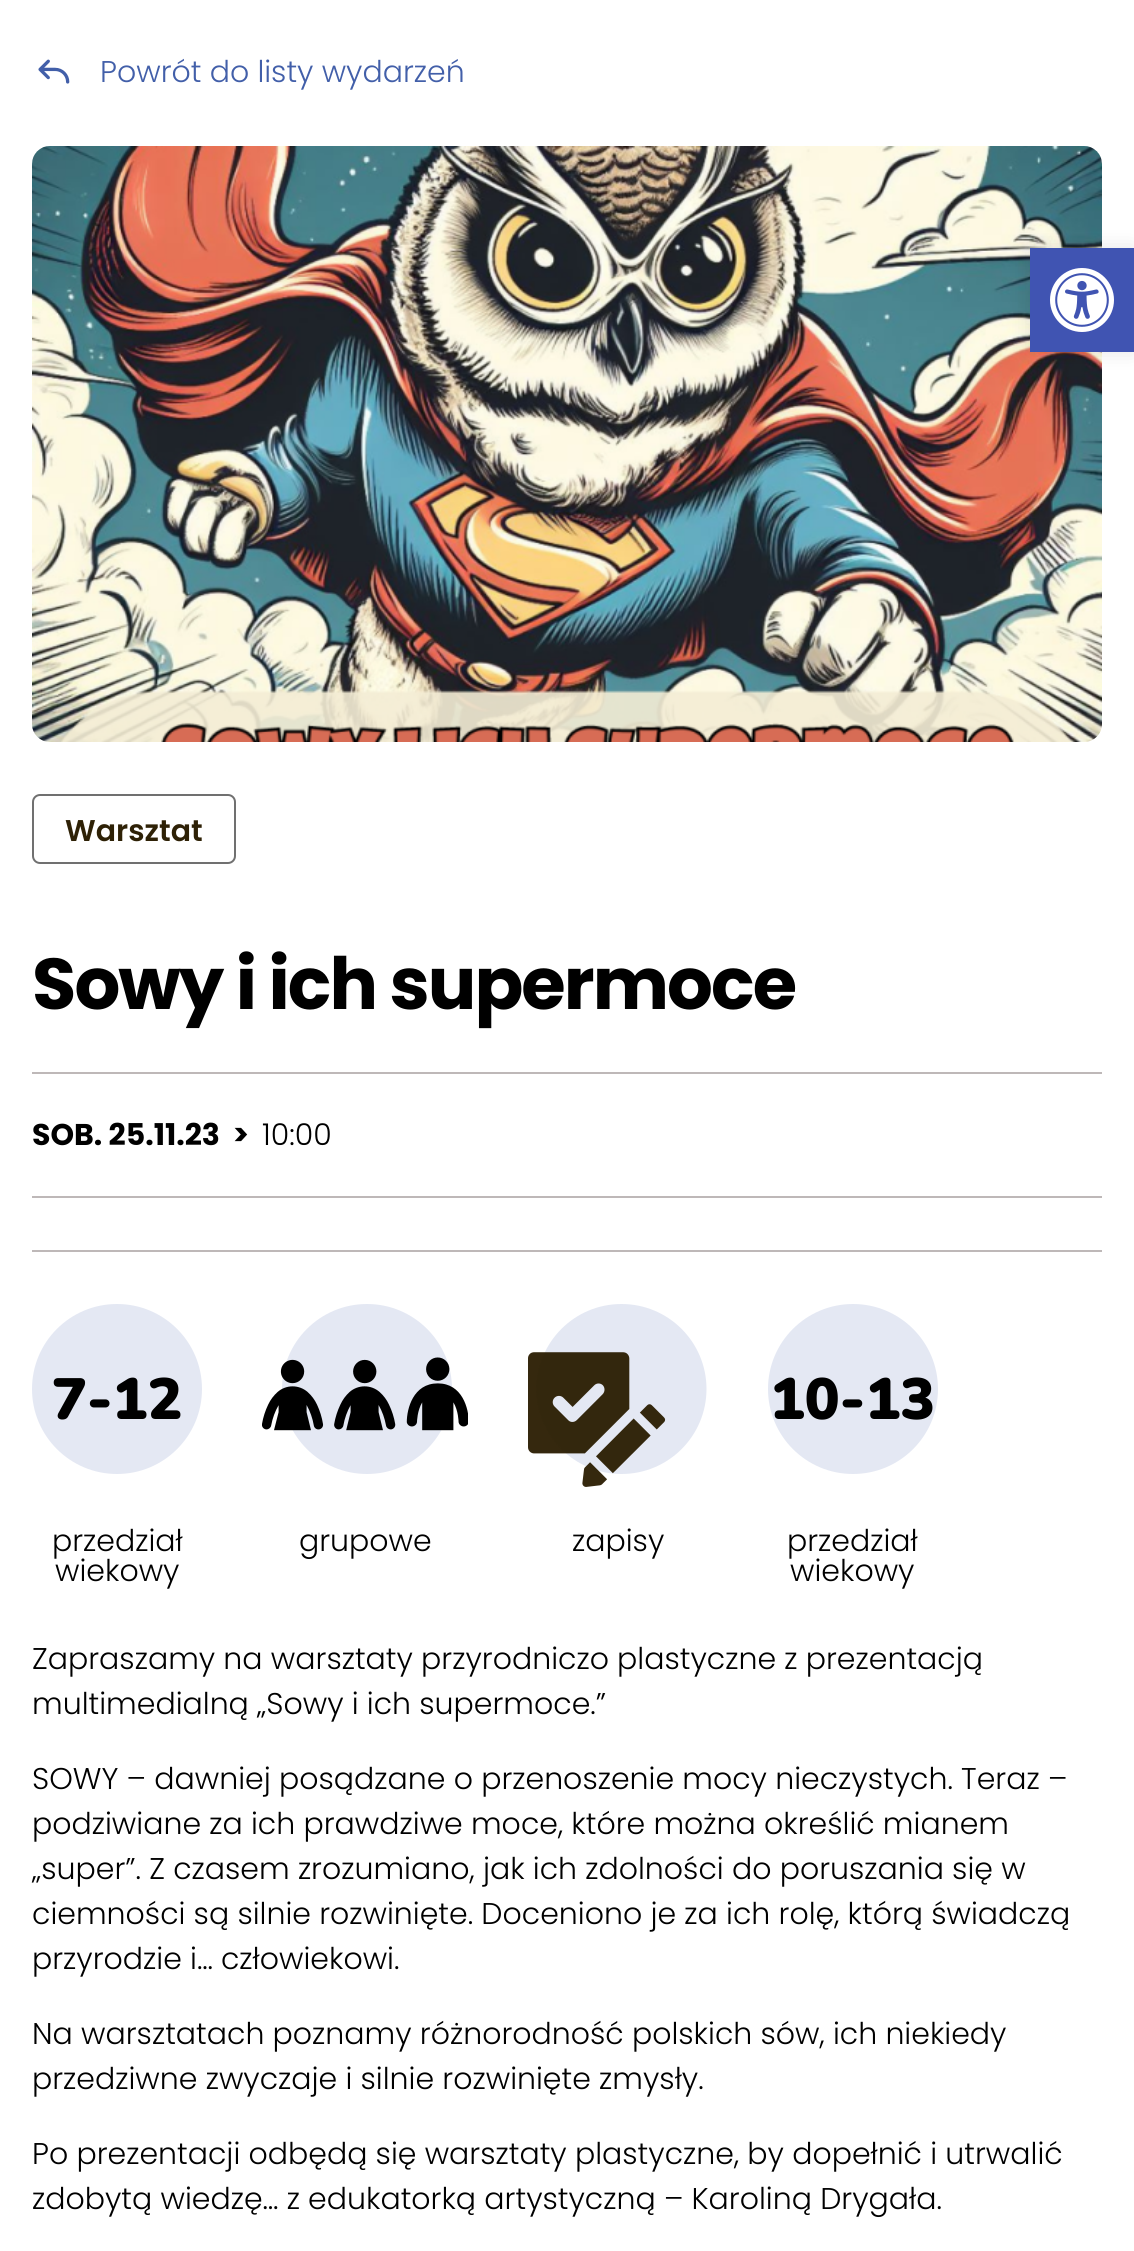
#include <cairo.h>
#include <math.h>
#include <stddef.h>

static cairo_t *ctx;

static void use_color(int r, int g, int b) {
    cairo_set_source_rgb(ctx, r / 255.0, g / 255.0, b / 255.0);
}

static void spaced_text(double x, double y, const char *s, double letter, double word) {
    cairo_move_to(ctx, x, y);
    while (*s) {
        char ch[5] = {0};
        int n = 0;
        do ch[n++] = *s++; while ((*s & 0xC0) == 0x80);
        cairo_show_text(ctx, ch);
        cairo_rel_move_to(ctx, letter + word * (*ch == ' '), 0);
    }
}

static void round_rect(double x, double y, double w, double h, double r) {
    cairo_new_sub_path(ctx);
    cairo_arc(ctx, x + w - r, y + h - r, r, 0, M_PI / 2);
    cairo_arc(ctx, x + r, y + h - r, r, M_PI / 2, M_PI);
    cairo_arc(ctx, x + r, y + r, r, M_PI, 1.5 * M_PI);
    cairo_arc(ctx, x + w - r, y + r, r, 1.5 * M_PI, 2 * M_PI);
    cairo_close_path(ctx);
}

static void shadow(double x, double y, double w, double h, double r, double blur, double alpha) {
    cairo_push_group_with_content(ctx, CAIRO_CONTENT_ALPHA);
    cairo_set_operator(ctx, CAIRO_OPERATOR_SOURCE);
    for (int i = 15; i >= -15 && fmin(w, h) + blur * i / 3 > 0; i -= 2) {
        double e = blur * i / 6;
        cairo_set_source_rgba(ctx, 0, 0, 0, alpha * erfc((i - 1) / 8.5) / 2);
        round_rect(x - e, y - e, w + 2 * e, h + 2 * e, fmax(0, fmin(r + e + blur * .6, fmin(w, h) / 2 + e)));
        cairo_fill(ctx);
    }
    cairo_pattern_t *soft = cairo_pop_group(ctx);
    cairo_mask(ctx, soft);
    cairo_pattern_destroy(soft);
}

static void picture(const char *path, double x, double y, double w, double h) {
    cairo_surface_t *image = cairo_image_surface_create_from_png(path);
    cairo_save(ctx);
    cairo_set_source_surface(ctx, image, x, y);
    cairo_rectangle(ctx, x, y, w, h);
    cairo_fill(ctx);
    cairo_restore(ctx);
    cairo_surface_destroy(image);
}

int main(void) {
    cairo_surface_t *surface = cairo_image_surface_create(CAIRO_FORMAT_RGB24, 1134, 2251);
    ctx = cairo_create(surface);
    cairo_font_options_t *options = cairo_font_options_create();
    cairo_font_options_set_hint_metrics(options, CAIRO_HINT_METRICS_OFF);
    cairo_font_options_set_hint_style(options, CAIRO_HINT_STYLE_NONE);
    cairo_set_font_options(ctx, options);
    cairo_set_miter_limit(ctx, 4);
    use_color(255, 255, 255);
    cairo_paint(ctx);
    picture("img1.png", 38, 59, 32, 25);
    cairo_select_font_face(ctx, "Poppins Light", CAIRO_FONT_SLANT_NORMAL, CAIRO_FONT_WEIGHT_NORMAL);
    cairo_set_font_size(ctx, 30);
    use_color(66, 95, 169);
    cairo_move_to(ctx, 100, 82);
    cairo_show_text(ctx, "Powrót do listy wydarzeń");
    use_color(0, 0, 0);
    cairo_move_to(ctx, 32, 1669);
    cairo_show_text(ctx, "Zapraszamy na warsztaty przyrodniczo plastyczne z prezentacją");
    cairo_move_to(ctx, 32, 1714);
    cairo_show_text(ctx, "multimedialną „Sowy i ich supermoce.”");
    cairo_move_to(ctx, 32, 1789);
    cairo_show_text(ctx, "SOWY – dawniej posądzane o przenoszenie mocy nieczystych. Teraz –");
    cairo_move_to(ctx, 32, 1834);
    cairo_show_text(ctx, "podziwiane za ich prawdziwe moce, które można określić mianem");
    cairo_move_to(ctx, 32, 1879);
    cairo_show_text(ctx, "„super”. Z czasem zrozumiano, jak ich zdolności do poruszania się w");
    cairo_move_to(ctx, 32, 1924);
    cairo_show_text(ctx, "ciemności są silnie rozwinięte. Doceniono je za ich rolę, którą świadczą");
    cairo_move_to(ctx, 32, 1969);
    cairo_show_text(ctx, "przyrodzie i… człowiekowi.");
    cairo_move_to(ctx, 32, 2044);
    cairo_show_text(ctx, "Na warsztatach poznamy różnorodność polskich sów, ich niekiedy");
    cairo_move_to(ctx, 32, 2089);
    cairo_show_text(ctx, "przedziwne zwyczaje i silnie rozwinięte zmysły.");
    cairo_move_to(ctx, 32, 2164);
    cairo_show_text(ctx, "Po prezentacji odbędą się warsztaty plastyczne, by dopełnić i utrwalić");
    cairo_move_to(ctx, 32, 2209);
    cairo_show_text(ctx, "zdobytą wiedzę… z edukatorką artystyczną – Karoliną Drygała.");
    picture("img2.png", 32, 146, 1070, 596);
    round_rect(33, 795, 202, 68, 7);
    use_color(112, 112, 112);
    cairo_stroke(ctx);
    cairo_select_font_face(ctx, "Poppins SemiBold", CAIRO_FONT_SLANT_NORMAL, CAIRO_FONT_WEIGHT_NORMAL);
    use_color(46, 33, 6);
    cairo_move_to(ctx, 65, 841);
    cairo_show_text(ctx, "Warsztat");
    cairo_select_font_face(ctx, "Poppins", CAIRO_FONT_SLANT_NORMAL, CAIRO_FONT_WEIGHT_BOLD);
    cairo_set_font_size(ctx, 72);
    use_color(0, 0, 0);
    spaced_text(32, 1009, "Sowy i ich supermoce", -1.9, 0);
    use_color(190, 184, 184);
    cairo_rectangle(ctx, 32, 1072, 1070, 2);
    cairo_fill(ctx);
    cairo_rectangle(ctx, 32, 1250, 1070, 2);
    cairo_fill(ctx);
    cairo_set_font_size(ctx, 30);
    use_color(0, 0, 0);
    cairo_move_to(ctx, 32, 1145);
    cairo_show_text(ctx, "SOB. 25.11.23  >");
    cairo_select_font_face(ctx, "Poppins Light", CAIRO_FONT_SLANT_NORMAL, CAIRO_FONT_WEIGHT_NORMAL);
    cairo_move_to(ctx, 262, 1145);
    cairo_show_text(ctx, "10:00");
    use_color(190, 184, 184);
    cairo_rectangle(ctx, 32, 1196, 1070, 2);
    cairo_fill(ctx);
    use_color(228, 232, 243);
    cairo_arc(ctx, 117, 1389, 85, 0, 2 * M_PI);
    cairo_fill(ctx);
    cairo_select_font_face(ctx, "Nunito Black", CAIRO_FONT_SLANT_NORMAL, CAIRO_FONT_WEIGHT_NORMAL);
    cairo_set_font_size(ctx, 58);
    use_color(0, 0, 0);
    cairo_move_to(ctx, 52, 1419);
    cairo_show_text(ctx, "7-12");
    cairo_select_font_face(ctx, "Poppins Light", CAIRO_FONT_SLANT_NORMAL, CAIRO_FONT_WEIGHT_NORMAL);
    cairo_set_font_size(ctx, 30);
    cairo_move_to(ctx, 52, 1551);
    cairo_show_text(ctx, "przedział");
    cairo_move_to(ctx, 55, 1581);
    cairo_show_text(ctx, "wiekowy");
    picture("img3.png", 262, 1304, 206, 170);
    cairo_move_to(ctx, 299, 1551);
    cairo_show_text(ctx, "grupowe");
    picture("img4.png", 528, 1304, 179, 183);
    cairo_move_to(ctx, 572, 1551);
    cairo_show_text(ctx, "zapisy");
    use_color(228, 232, 243);
    cairo_new_path(ctx);
    cairo_arc(ctx, 853, 1389, 85, 0, 2 * M_PI);
    cairo_fill(ctx);
    cairo_select_font_face(ctx, "Nunito Black", CAIRO_FONT_SLANT_NORMAL, CAIRO_FONT_WEIGHT_NORMAL);
    cairo_set_font_size(ctx, 58);
    use_color(0, 0, 0);
    cairo_move_to(ctx, 770, 1419);
    cairo_show_text(ctx, "10-13");
    cairo_select_font_face(ctx, "Poppins Light", CAIRO_FONT_SLANT_NORMAL, CAIRO_FONT_WEIGHT_NORMAL);
    cairo_set_font_size(ctx, 30);
    cairo_move_to(ctx, 787, 1551);
    cairo_show_text(ctx, "przedział");
    cairo_move_to(ctx, 790, 1581);
    cairo_show_text(ctx, "wiekowy");
    use_color(0, 0, 0);
    shadow(1030, 248, 104, 104, 0, 10, 0.1);
    use_color(64, 84, 178);
    cairo_rectangle(ctx, 1030, 248, 104, 104);
    cairo_fill(ctx);
    picture("img5.png", 1050, 268, 64, 64);
    cairo_surface_write_to_png(surface, "result.png");
    cairo_font_options_destroy(options);
    cairo_destroy(ctx);
    cairo_surface_destroy(surface);
    return 0;
}
